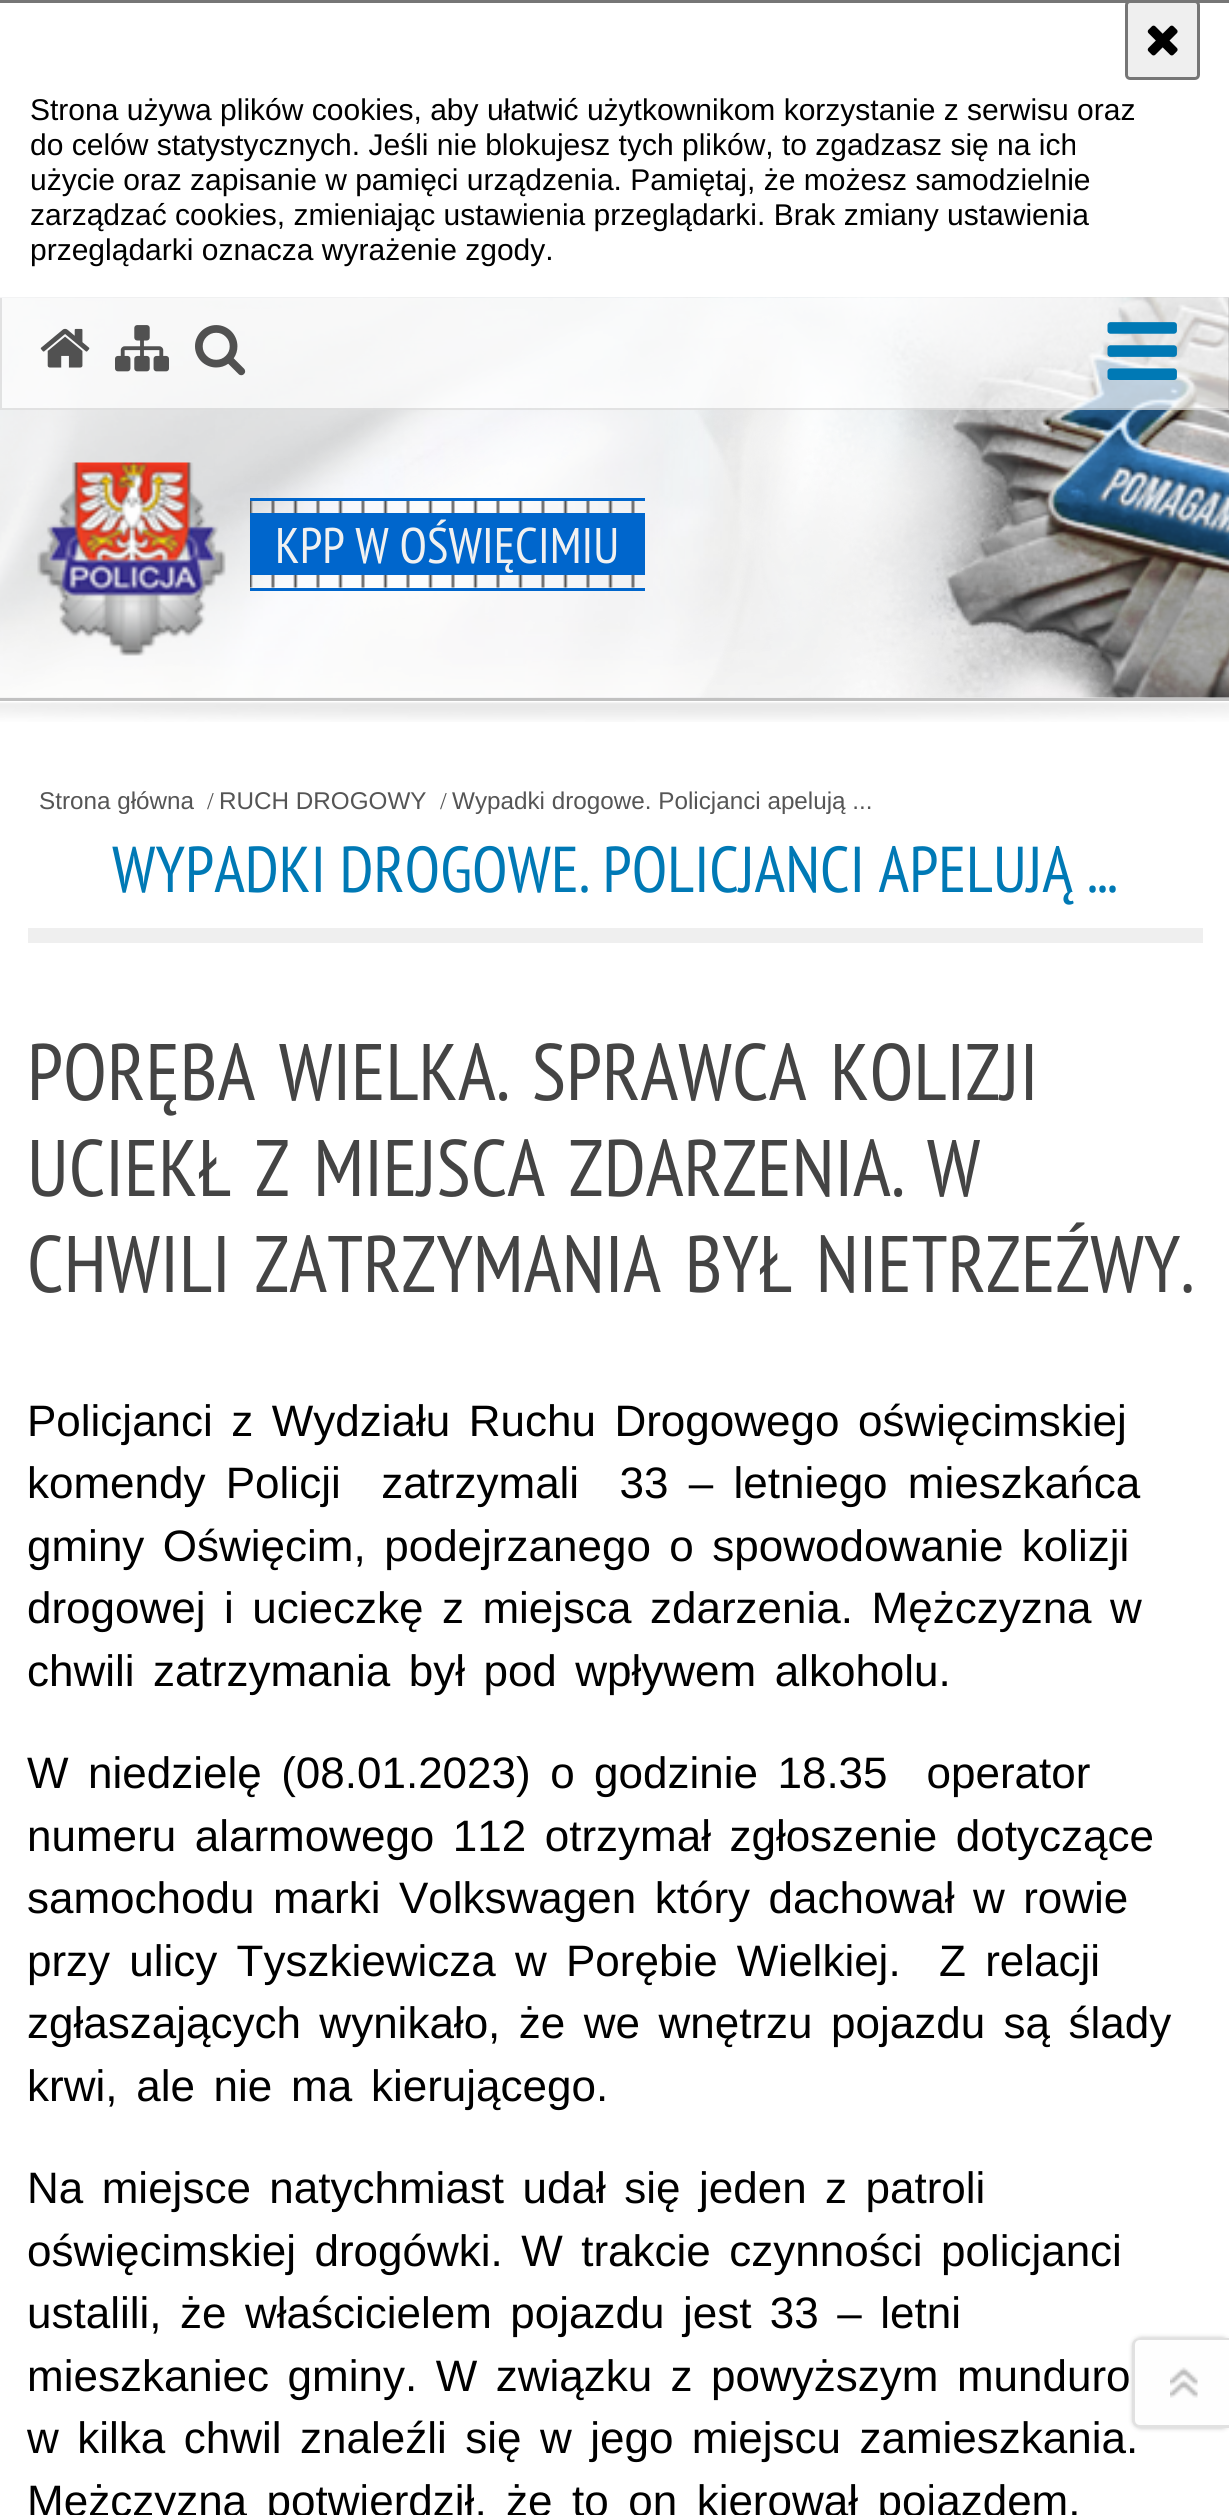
#include <cairo.h>
#include <math.h>
#include <stddef.h>

static cairo_t *ctx;

static void use_color(int r, int g, int b) {
    cairo_set_source_rgb(ctx, r / 255.0, g / 255.0, b / 255.0);
}

static void spaced_text(double x, double y, const char *s, double letter, double word) {
    cairo_move_to(ctx, x, y);
    while (*s) {
        char ch[5] = {0};
        int n = 0;
        do ch[n++] = *s++; while ((*s & 0xC0) == 0x80);
        cairo_show_text(ctx, ch);
        cairo_rel_move_to(ctx, letter + word * (*ch == ' '), 0);
    }
}

static void round_rect(double x, double y, double w, double h, double r) {
    cairo_new_sub_path(ctx);
    cairo_arc(ctx, x + w - r, y + h - r, r, 0, M_PI / 2);
    cairo_arc(ctx, x + r, y + h - r, r, M_PI / 2, M_PI);
    cairo_arc(ctx, x + r, y + r, r, M_PI, 1.5 * M_PI);
    cairo_arc(ctx, x + w - r, y + r, r, 1.5 * M_PI, 2 * M_PI);
    cairo_close_path(ctx);
}

static void shadow(double x, double y, double w, double h, double r, double blur, double alpha) {
    cairo_push_group_with_content(ctx, CAIRO_CONTENT_ALPHA);
    cairo_set_operator(ctx, CAIRO_OPERATOR_SOURCE);
    for (int i = 15; i >= -15 && fmin(w, h) + blur * i / 3 > 0; i -= 2) {
        double e = blur * i / 6;
        cairo_set_source_rgba(ctx, 0, 0, 0, alpha * erfc((i - 1) / 8.5) / 2);
        round_rect(x - e, y - e, w + 2 * e, h + 2 * e, fmax(0, fmin(r + e + blur * .6, fmin(w, h) / 2 + e)));
        cairo_fill(ctx);
    }
    cairo_pattern_t *soft = cairo_pop_group(ctx);
    cairo_mask(ctx, soft);
    cairo_pattern_destroy(soft);
}

static void picture(const char *path, double x, double y, double w, double h) {
    cairo_surface_t *image = cairo_image_surface_create_from_png(path);
    cairo_save(ctx);
    cairo_set_source_surface(ctx, image, x, y);
    cairo_rectangle(ctx, x, y, w, h);
    cairo_fill(ctx);
    cairo_restore(ctx);
    cairo_surface_destroy(image);
}

int main(void) {
    cairo_surface_t *surface = cairo_image_surface_create(CAIRO_FORMAT_RGB24, 1229, 2515);
    ctx = cairo_create(surface);
    cairo_font_options_t *options = cairo_font_options_create();
    cairo_font_options_set_hint_metrics(options, CAIRO_HINT_METRICS_OFF);
    cairo_font_options_set_hint_style(options, CAIRO_HINT_STYLE_NONE);
    cairo_set_font_options(ctx, options);
    cairo_set_miter_limit(ctx, 4);
    use_color(255, 255, 255);
    cairo_paint(ctx);
    use_color(118, 118, 118);
    cairo_rectangle(ctx, 0, 0, 1229, 3);
    cairo_fill(ctx);
    use_color(239, 239, 239);
    round_rect(1126.5, 1.5, 72, 77, 3.5);
    cairo_fill_preserve(ctx);
    use_color(118, 118, 118);
    cairo_set_line_width(ctx, 3);
    cairo_stroke(ctx);
    picture("img1.png", 1147, 25, 31, 31);
    cairo_select_font_face(ctx, "Liberation Sans", CAIRO_FONT_SLANT_NORMAL, CAIRO_FONT_WEIGHT_NORMAL);
    cairo_set_font_size(ctx, 30);
    use_color(0, 0, 0);
    cairo_move_to(ctx, 30, 120);
    cairo_show_text(ctx, "Strona używa plików cookies, aby ułatwić użytkownikom korzystanie z serwisu oraz");
    cairo_move_to(ctx, 30, 155);
    cairo_show_text(ctx, "do celów statystycznych. Jeśli nie blokujesz tych plików, to zgadzasz się na ich");
    cairo_move_to(ctx, 30, 190);
    cairo_show_text(ctx, "użycie oraz zapisanie w pamięci urządzenia. Pamiętaj, że możesz samodzielnie");
    cairo_move_to(ctx, 30, 225);
    cairo_show_text(ctx, "zarządzać cookies, zmieniając ustawienia przeglądarki. Brak zmiany ustawienia");
    cairo_move_to(ctx, 30, 260);
    cairo_show_text(ctx, "przeglądarki oznacza wyrażenie zgody.");
    picture("img2.png", 0, 297, 1229, 401);
    picture("img3.png", 0, 702, 1229, 20);
    picture("img4.png", 0, 297, 1229, 401);
    use_color(193, 193, 193);
    cairo_rectangle(ctx, 0, 698, 1229, 3);
    cairo_fill(ctx);
    cairo_set_source_rgba(ctx, 1, 1, 1, 0.7);
    cairo_rectangle(ctx, 0, 298, 1229, 112);
    cairo_fill(ctx);
    cairo_set_source_rgba(ctx, 0, 0, 0, 0.1);
    cairo_new_path(ctx);
    cairo_move_to(ctx, 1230, 298);
    cairo_line_to(ctx, 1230, 410);
    cairo_line_to(ctx, 1228, 408);
    cairo_line_to(ctx, 1228, 298);
    cairo_close_path(ctx);
    cairo_fill(ctx);
    cairo_new_path(ctx);
    cairo_move_to(ctx, 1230, 410);
    cairo_line_to(ctx, 0, 410);
    cairo_line_to(ctx, 2, 408);
    cairo_line_to(ctx, 1228, 408);
    cairo_close_path(ctx);
    cairo_fill(ctx);
    cairo_new_path(ctx);
    cairo_move_to(ctx, 0, 410);
    cairo_line_to(ctx, 0, 298);
    cairo_line_to(ctx, 2, 298);
    cairo_line_to(ctx, 2, 408);
    cairo_close_path(ctx);
    cairo_fill(ctx);
    picture("img5.png", 40, 328, 50, 40);
    picture("img6.png", 115, 325, 54, 47);
    picture("img7.png", 195, 325, 51, 51);
    picture("img8.png", 1107, 322, 70, 58);
    picture("img9.png", 250, 501, 385, 87);
    use_color(0, 102, 204);
    cairo_rectangle(ctx, 250, 498, 395, 3);
    cairo_fill(ctx);
    cairo_rectangle(ctx, 250, 588, 395, 3);
    cairo_fill(ctx);
    picture("img10.png", 37, 462, 189, 194);
    cairo_rectangle(ctx, 250, 513, 395, 62);
    cairo_fill(ctx);
    cairo_select_font_face(ctx, "PT Sans Narrow", CAIRO_FONT_SLANT_NORMAL, CAIRO_FONT_WEIGHT_NORMAL);
    cairo_set_font_size(ctx, 50);
    use_color(241, 241, 241);
    cairo_move_to(ctx, 275, 563);
    cairo_show_text(ctx, "KPP W OŚWIĘCIMIU");
    cairo_select_font_face(ctx, "Liberation Sans", CAIRO_FONT_SLANT_NORMAL, CAIRO_FONT_WEIGHT_NORMAL);
    cairo_set_font_size(ctx, 24.25);
    use_color(85, 85, 85);
    cairo_move_to(ctx, 39, 809);
    cairo_show_text(ctx, "Strona główna");
    cairo_select_font_face(ctx, "Liberation Serif", CAIRO_FONT_SLANT_NORMAL, CAIRO_FONT_WEIGHT_NORMAL);
    cairo_move_to(ctx, 207, 809);
    cairo_show_text(ctx, "/");
    cairo_select_font_face(ctx, "Liberation Sans", CAIRO_FONT_SLANT_NORMAL, CAIRO_FONT_WEIGHT_NORMAL);
    cairo_move_to(ctx, 219, 809);
    cairo_show_text(ctx, "RUCH DROGOWY");
    cairo_select_font_face(ctx, "Liberation Serif", CAIRO_FONT_SLANT_NORMAL, CAIRO_FONT_WEIGHT_NORMAL);
    cairo_move_to(ctx, 440, 809);
    cairo_show_text(ctx, "/");
    cairo_select_font_face(ctx, "Liberation Sans", CAIRO_FONT_SLANT_NORMAL, CAIRO_FONT_WEIGHT_NORMAL);
    cairo_move_to(ctx, 452, 809);
    cairo_show_text(ctx, "Wypadki drogowe. Policjanci apelują ...");
    use_color(239, 239, 239);
    cairo_rectangle(ctx, 28, 928, 1175, 15);
    cairo_fill(ctx);
    cairo_select_font_face(ctx, "PT Sans Narrow", CAIRO_FONT_SLANT_NORMAL, CAIRO_FONT_WEIGHT_NORMAL);
    cairo_set_font_size(ctx, 64.75);
    use_color(0, 121, 181);
    cairo_move_to(ctx, 112, 892);
    cairo_show_text(ctx, "WYPADKI DROGOWE. POLICJANCI APELUJĄ ...");
    cairo_set_font_size(ctx, 80);
    use_color(68, 68, 68);
    spaced_text(27, 1100, "PORĘBA WIELKA. SPRAWCA KOLIZJI", 0, 6.5);
    spaced_text(27, 1196, "UCIEKŁ Z MIEJSCA ZDARZENIA. W", 0, 6.5);
    spaced_text(27, 1292, "CHWILI ZATRZYMANIA BYŁ NIETRZEŹWY.", 0, 6.5);
    cairo_select_font_face(ctx, "Liberation Sans", CAIRO_FONT_SLANT_NORMAL, CAIRO_FONT_WEIGHT_NORMAL);
    cairo_set_font_size(ctx, 44);
    use_color(0, 0, 0);
    spaced_text(27, 1436, "Policjanci z Wydziału Ruchu Drogowego oświęcimskiej", 0, 6.25);
    spaced_text(27, 1498, "komendy Policji  zatrzymali  33 – letniego mieszkańca", 0, 8);
    spaced_text(27, 1561, "gminy Oświęcim, podejrzanego o spowodowanie kolizji", 0, 6.25);
    spaced_text(27, 1623, "drogowej i ucieczkę z miejsca zdarzenia. Mężczyzna w", 0, 6.25);
    spaced_text(27, 1686, "chwili zatrzymania był pod wpływem alkoholu.", 0, 6.25);
    spaced_text(27, 1788, "W niedzielę (08.01.2023) o godzinie 18.35  operator", 0, 7.25);
    spaced_text(27, 1851, "numeru alarmowego 112 otrzymał zgłoszenie dotyczące", 0, 6.25);
    spaced_text(27, 1913, "samochodu marki Volkswagen który dachował w rowie", 0, 6.25);
    spaced_text(27, 1976, "przy ulicy Tyszkiewicza w Porębie Wielkiej.  Z relacji", 0, 7);
    spaced_text(27, 2038, "zgłaszających wynikało, że we wnętrzu pojazdu są ślady", 0, 6.25);
    spaced_text(27, 2101, "krwi, ale nie ma kierującego.", 0, 6.5);
    spaced_text(27, 2203, "Na miejsce natychmiast udał się jeden z patroli", 0, 6.25);
    spaced_text(27, 2266, "oświęcimskiej drogówki. W trakcie czynności policjanci", 0, 6.25);
    spaced_text(27, 2328, "ustalili, że właścicielem pojazdu jest 33 – letni", 0, 6.25);
    spaced_text(27, 2391, "mieszkaniec gminy. W związku z powyższym munduro", 0, 6.25);
    spaced_text(27, 2453, "w kilka chwil znaleźli się w jego miejscu zamieszkania.", 0, 6.25);
    spaced_text(27, 2516, "Mężczyzna potwierdził, że to on kierował pojazdem.", 0, 7.25);
    use_color(0, 0, 0);
    shadow(1133, 2338, 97, 90, 8, 2.5, 0.25);
    use_color(254, 254, 254);
    cairo_new_path(ctx);
    cairo_move_to(ctx, 1141, 2338);
    cairo_line_to(ctx, 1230, 2338);
    cairo_line_to(ctx, 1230, 2428);
    cairo_line_to(ctx, 1141, 2428);
    cairo_curve_to(ctx, 1136.5, 2428, 1133, 2424.5, 1133, 2420);
    cairo_line_to(ctx, 1133, 2346);
    cairo_curve_to(ctx, 1133, 2341.5, 1136.5, 2338, 1141, 2338);
    cairo_close_path(ctx);
    cairo_fill(ctx);
    use_color(225, 225, 225);
    cairo_set_fill_rule(ctx, CAIRO_FILL_RULE_EVEN_ODD);
    cairo_new_path(ctx);
    cairo_move_to(ctx, 1140, 2338);
    cairo_line_to(ctx, 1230, 2338);
    cairo_line_to(ctx, 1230, 2428);
    cairo_line_to(ctx, 1140, 2428);
    cairo_curve_to(ctx, 1136, 2428, 1132, 2424, 1132, 2420);
    cairo_line_to(ctx, 1132, 2345);
    cairo_curve_to(ctx, 1132, 2341, 1136, 2338, 1140, 2338);
    cairo_close_path(ctx);
    cairo_move_to(ctx, 1140, 2340);
    cairo_line_to(ctx, 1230, 2340);
    cairo_line_to(ctx, 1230, 2425);
    cairo_line_to(ctx, 1140, 2425);
    cairo_curve_to(ctx, 1137, 2425, 1135, 2423, 1135, 2420);
    cairo_line_to(ctx, 1135, 2345);
    cairo_curve_to(ctx, 1135, 2342, 1137, 2340, 1140, 2340);
    cairo_close_path(ctx);
    cairo_fill(ctx);
    picture("img11.png", 1170, 2367, 28, 31);
    cairo_surface_write_to_png(surface, "result.png");
    cairo_font_options_destroy(options);
    cairo_destroy(ctx);
    cairo_surface_destroy(surface);
    return 0;
}
